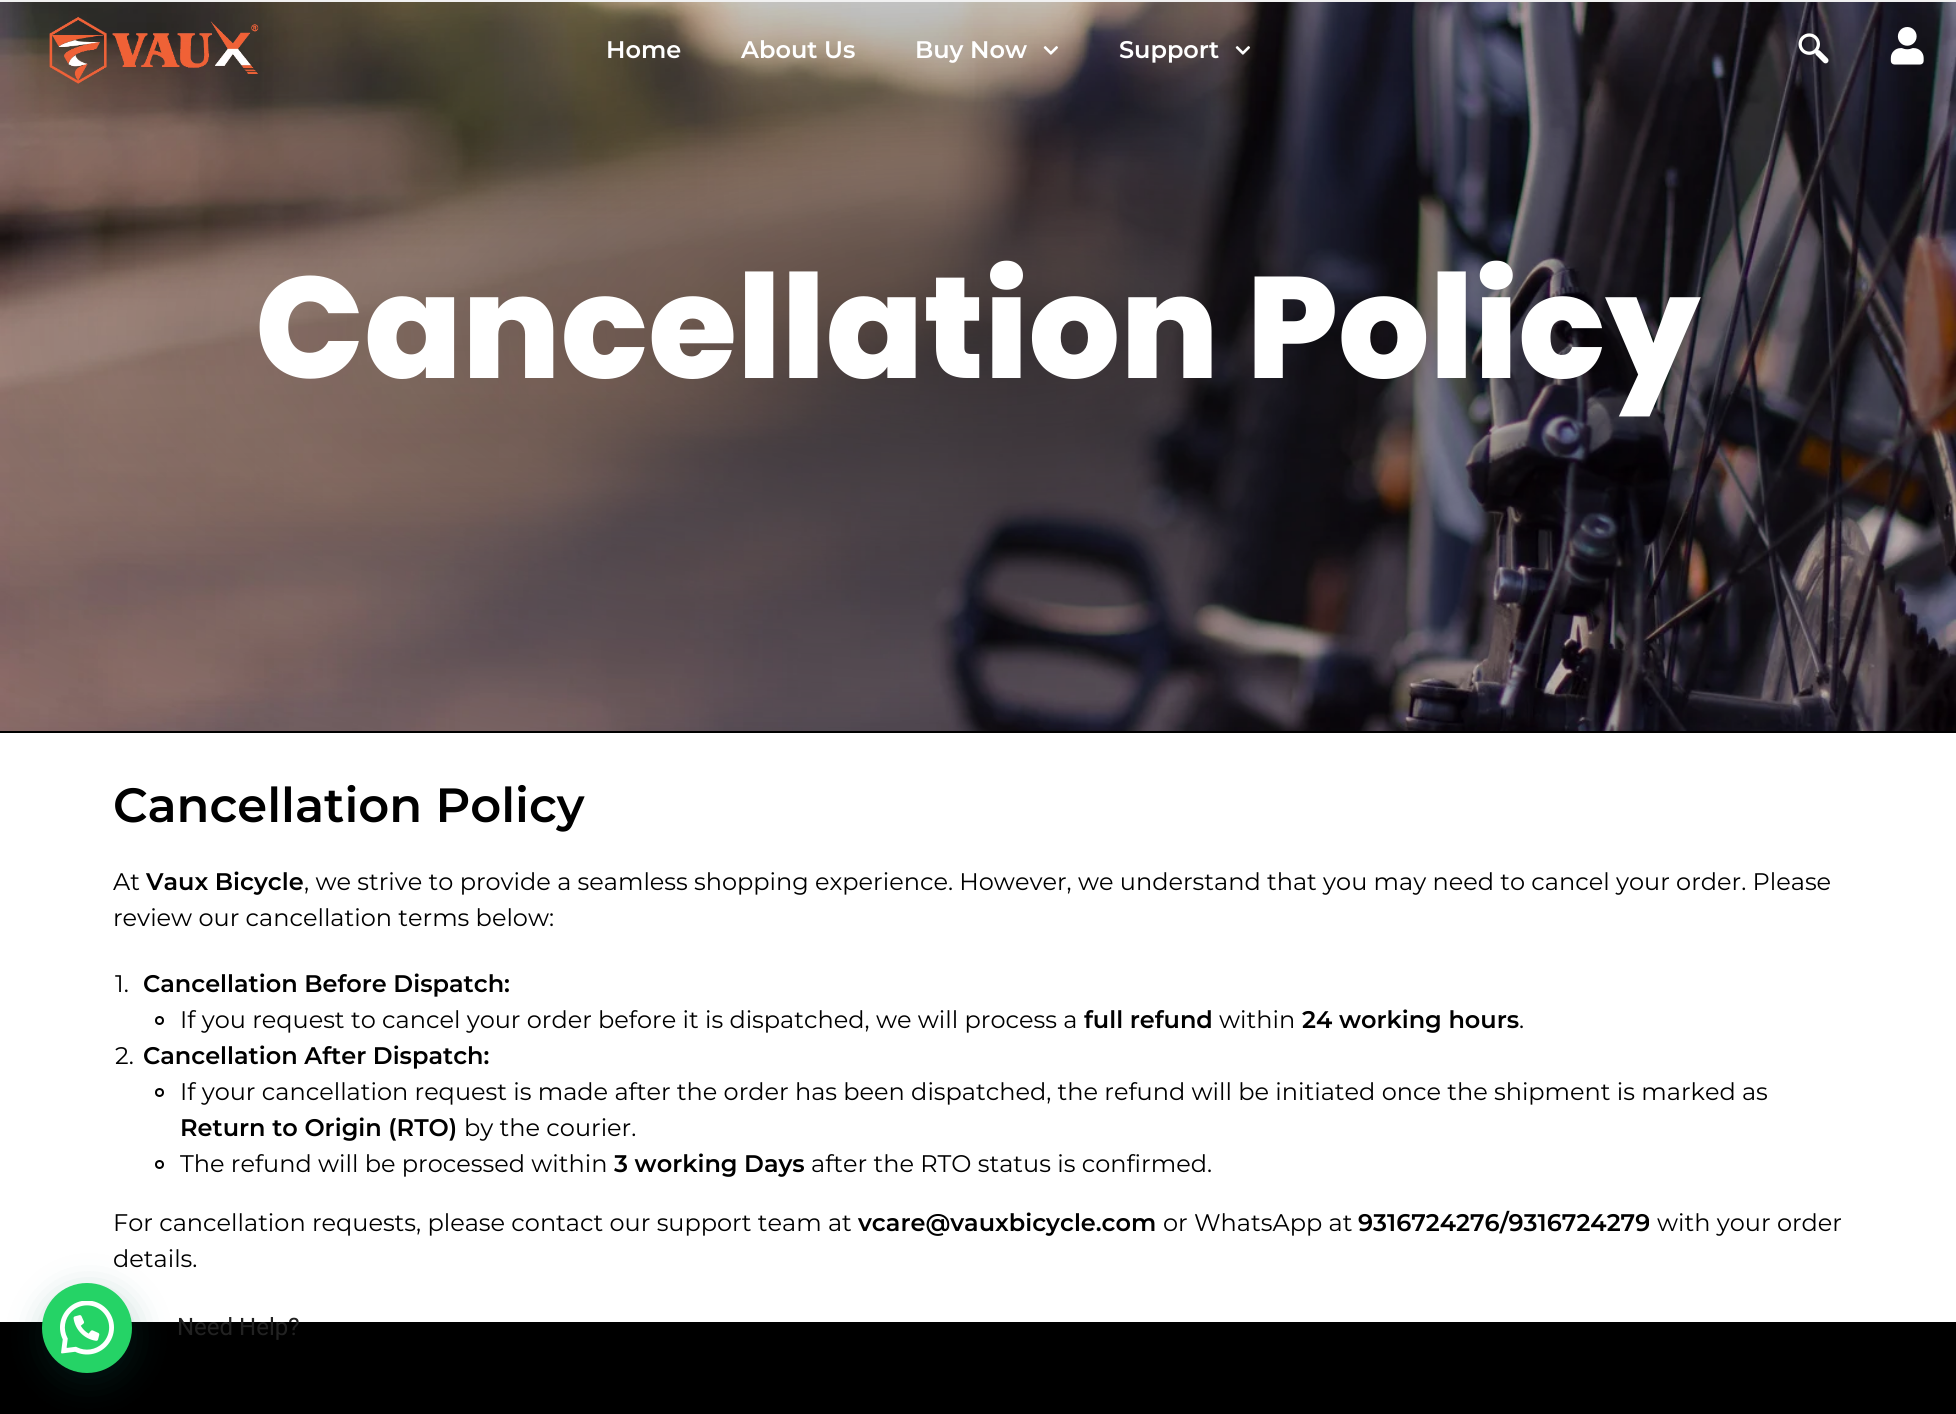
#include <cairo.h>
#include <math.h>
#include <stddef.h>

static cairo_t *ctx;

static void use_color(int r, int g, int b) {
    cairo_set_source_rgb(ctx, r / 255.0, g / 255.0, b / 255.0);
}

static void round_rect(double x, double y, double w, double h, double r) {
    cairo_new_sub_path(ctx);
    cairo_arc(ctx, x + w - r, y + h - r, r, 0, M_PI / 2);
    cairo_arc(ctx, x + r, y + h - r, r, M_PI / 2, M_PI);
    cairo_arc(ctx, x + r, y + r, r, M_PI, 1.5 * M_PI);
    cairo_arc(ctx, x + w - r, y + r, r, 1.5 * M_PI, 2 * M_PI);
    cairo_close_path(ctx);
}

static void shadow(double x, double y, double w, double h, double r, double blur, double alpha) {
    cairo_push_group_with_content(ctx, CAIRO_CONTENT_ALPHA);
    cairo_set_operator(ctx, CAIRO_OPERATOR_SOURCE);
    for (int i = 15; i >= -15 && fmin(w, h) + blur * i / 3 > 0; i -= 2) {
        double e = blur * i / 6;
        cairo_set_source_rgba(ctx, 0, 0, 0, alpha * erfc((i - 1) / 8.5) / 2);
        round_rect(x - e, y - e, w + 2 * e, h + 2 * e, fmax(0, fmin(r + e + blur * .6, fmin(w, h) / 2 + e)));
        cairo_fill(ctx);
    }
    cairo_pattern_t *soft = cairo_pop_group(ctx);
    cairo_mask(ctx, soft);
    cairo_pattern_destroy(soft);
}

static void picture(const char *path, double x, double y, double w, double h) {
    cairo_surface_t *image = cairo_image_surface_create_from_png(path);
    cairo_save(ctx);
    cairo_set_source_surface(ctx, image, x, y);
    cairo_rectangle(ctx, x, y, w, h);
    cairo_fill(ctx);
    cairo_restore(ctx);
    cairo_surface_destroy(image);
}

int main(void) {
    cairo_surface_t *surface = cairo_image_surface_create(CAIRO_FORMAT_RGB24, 1956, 1414);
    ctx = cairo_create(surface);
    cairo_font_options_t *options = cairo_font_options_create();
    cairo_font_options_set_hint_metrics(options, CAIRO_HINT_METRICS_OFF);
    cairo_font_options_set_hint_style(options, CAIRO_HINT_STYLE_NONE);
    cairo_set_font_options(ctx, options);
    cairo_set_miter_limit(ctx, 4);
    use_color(255, 255, 255);
    cairo_paint(ctx);
    use_color(241, 241, 241);
    cairo_rectangle(ctx, 0, 0, 1956, 2);
    cairo_fill(ctx);
    picture("img6.png", 0, 2, 1956, 729);
    picture("img1.png", 49, 16, 210, 68);
    cairo_select_font_face(ctx, "Montserrat SemiBold", CAIRO_FONT_SLANT_NORMAL, CAIRO_FONT_WEIGHT_NORMAL);
    cairo_set_font_size(ctx, 24);
    use_color(255, 255, 255);
    cairo_move_to(ctx, 606, 58);
    cairo_show_text(ctx, "Home");
    cairo_move_to(ctx, 741, 58);
    cairo_show_text(ctx, "About Us");
    cairo_move_to(ctx, 915, 58);
    cairo_show_text(ctx, "Buy Now");
    picture("img2.png", 1043, 46, 15, 9);
    cairo_move_to(ctx, 1119, 58);
    cairo_show_text(ctx, "Support");
    picture("img3.png", 1235, 46, 15, 9);
    picture("img4.png", 1798, 33, 31, 31);
    picture("img5.png", 1890, 27, 34, 38);
    use_color(0, 0, 0);
    cairo_rectangle(ctx, 0, 731, 1956, 2);
    cairo_fill(ctx);
    cairo_select_font_face(ctx, "Poppins ExtraBold", CAIRO_FONT_SLANT_NORMAL, CAIRO_FONT_WEIGHT_NORMAL);
    cairo_set_font_size(ctx, 144);
    use_color(255, 255, 255);
    cairo_move_to(ctx, 255, 378);
    cairo_show_text(ctx, "Cancellation Policy");
    cairo_select_font_face(ctx, "Montserrat SemiBold", CAIRO_FONT_SLANT_NORMAL, CAIRO_FONT_WEIGHT_NORMAL);
    cairo_set_font_size(ctx, 48);
    use_color(0, 0, 0);
    cairo_move_to(ctx, 113, 822);
    cairo_show_text(ctx, "Cancellation Policy");
    cairo_select_font_face(ctx, "Montserrat", CAIRO_FONT_SLANT_NORMAL, CAIRO_FONT_WEIGHT_NORMAL);
    cairo_set_font_size(ctx, 24);
    cairo_move_to(ctx, 113, 890);
    cairo_show_text(ctx, "At");
    cairo_select_font_face(ctx, "Montserrat SemiBold", CAIRO_FONT_SLANT_NORMAL, CAIRO_FONT_WEIGHT_NORMAL);
    cairo_move_to(ctx, 146, 890);
    cairo_show_text(ctx, "Vaux Bicycle");
    cairo_select_font_face(ctx, "Montserrat", CAIRO_FONT_SLANT_NORMAL, CAIRO_FONT_WEIGHT_NORMAL);
    cairo_move_to(ctx, 304, 890);
    cairo_show_text(ctx, ", we strive to provide a seamless shopping experience. However, we understand that you may need to cancel your order. Please");
    cairo_move_to(ctx, 113, 926);
    cairo_show_text(ctx, "review our cancellation terms below:");
    cairo_move_to(ctx, 115, 992);
    cairo_show_text(ctx, "1.");
    cairo_select_font_face(ctx, "Montserrat SemiBold", CAIRO_FONT_SLANT_NORMAL, CAIRO_FONT_WEIGHT_NORMAL);
    cairo_move_to(ctx, 143, 992);
    cairo_show_text(ctx, "Cancellation Before Dispatch:");
    cairo_new_path(ctx);
    cairo_arc(ctx, 159.5, 1020.5, 3.5, 0, 2 * M_PI);
    cairo_stroke(ctx);
    cairo_select_font_face(ctx, "Montserrat", CAIRO_FONT_SLANT_NORMAL, CAIRO_FONT_WEIGHT_NORMAL);
    cairo_move_to(ctx, 180, 1028);
    cairo_show_text(ctx, "If you request to cancel your order before it is dispatched, we will process a");
    cairo_select_font_face(ctx, "Montserrat SemiBold", CAIRO_FONT_SLANT_NORMAL, CAIRO_FONT_WEIGHT_NORMAL);
    cairo_move_to(ctx, 1084, 1028);
    cairo_show_text(ctx, "full refund");
    cairo_select_font_face(ctx, "Montserrat", CAIRO_FONT_SLANT_NORMAL, CAIRO_FONT_WEIGHT_NORMAL);
    cairo_move_to(ctx, 1219, 1028);
    cairo_show_text(ctx, "within");
    cairo_select_font_face(ctx, "Montserrat SemiBold", CAIRO_FONT_SLANT_NORMAL, CAIRO_FONT_WEIGHT_NORMAL);
    cairo_move_to(ctx, 1302, 1028);
    cairo_show_text(ctx, "24 working hours");
    cairo_select_font_face(ctx, "Montserrat", CAIRO_FONT_SLANT_NORMAL, CAIRO_FONT_WEIGHT_NORMAL);
    cairo_move_to(ctx, 1519, 1028);
    cairo_show_text(ctx, ".");
    cairo_move_to(ctx, 115, 1064);
    cairo_show_text(ctx, "2.");
    cairo_select_font_face(ctx, "Montserrat SemiBold", CAIRO_FONT_SLANT_NORMAL, CAIRO_FONT_WEIGHT_NORMAL);
    cairo_move_to(ctx, 143, 1064);
    cairo_show_text(ctx, "Cancellation After Dispatch:");
    cairo_new_path(ctx);
    cairo_arc(ctx, 159.5, 1092.5, 3.5, 0, 2 * M_PI);
    cairo_stroke(ctx);
    cairo_select_font_face(ctx, "Montserrat", CAIRO_FONT_SLANT_NORMAL, CAIRO_FONT_WEIGHT_NORMAL);
    cairo_move_to(ctx, 180, 1100);
    cairo_show_text(ctx, "If your cancellation request is made after the order has been dispatched, the refund will be initiated once the shipment is marked as");
    cairo_select_font_face(ctx, "Montserrat SemiBold", CAIRO_FONT_SLANT_NORMAL, CAIRO_FONT_WEIGHT_NORMAL);
    cairo_move_to(ctx, 180, 1136);
    cairo_show_text(ctx, "Return to Origin (RTO)");
    cairo_select_font_face(ctx, "Montserrat", CAIRO_FONT_SLANT_NORMAL, CAIRO_FONT_WEIGHT_NORMAL);
    cairo_move_to(ctx, 464, 1136);
    cairo_show_text(ctx, "by the courier.");
    cairo_new_path(ctx);
    cairo_arc(ctx, 159.5, 1164.5, 3.5, 0, 2 * M_PI);
    cairo_stroke(ctx);
    cairo_move_to(ctx, 180, 1172);
    cairo_show_text(ctx, "The refund will be processed within");
    cairo_select_font_face(ctx, "Montserrat SemiBold", CAIRO_FONT_SLANT_NORMAL, CAIRO_FONT_WEIGHT_NORMAL);
    cairo_move_to(ctx, 614, 1172);
    cairo_show_text(ctx, "3 working Days");
    cairo_select_font_face(ctx, "Montserrat", CAIRO_FONT_SLANT_NORMAL, CAIRO_FONT_WEIGHT_NORMAL);
    cairo_move_to(ctx, 811, 1172);
    cairo_show_text(ctx, "after the RTO status is confirmed.");
    cairo_move_to(ctx, 113, 1231);
    cairo_show_text(ctx, "For cancellation requests, please contact our support team at");
    cairo_select_font_face(ctx, "Montserrat SemiBold", CAIRO_FONT_SLANT_NORMAL, CAIRO_FONT_WEIGHT_NORMAL);
    cairo_move_to(ctx, 858, 1231);
    cairo_show_text(ctx, "vcare@vauxbicycle.com");
    cairo_select_font_face(ctx, "Montserrat", CAIRO_FONT_SLANT_NORMAL, CAIRO_FONT_WEIGHT_NORMAL);
    cairo_move_to(ctx, 1163, 1231);
    cairo_show_text(ctx, "or WhatsApp at");
    cairo_select_font_face(ctx, "Montserrat SemiBold", CAIRO_FONT_SLANT_NORMAL, CAIRO_FONT_WEIGHT_NORMAL);
    cairo_move_to(ctx, 1358, 1231);
    cairo_show_text(ctx, "9316724276/9316724279");
    cairo_select_font_face(ctx, "Montserrat", CAIRO_FONT_SLANT_NORMAL, CAIRO_FONT_WEIGHT_NORMAL);
    cairo_move_to(ctx, 1657, 1231);
    cairo_show_text(ctx, "with your order");
    cairo_move_to(ctx, 113, 1267);
    cairo_show_text(ctx, "details.");
    cairo_rectangle(ctx, 0, 1322, 1956, 92);
    cairo_fill(ctx);
    use_color(7, 94, 84);
    shadow(44, 1292, 90, 90, 45, 18, 0.24);
    use_color(37, 211, 102);
    cairo_arc(ctx, 87, 1328, 45, 0, 2 * M_PI);
    cairo_fill(ctx);
    picture("img7.png", 60, 1301, 54, 54);
    cairo_select_font_face(ctx, "Roboto", CAIRO_FONT_SLANT_NORMAL, CAIRO_FONT_WEIGHT_NORMAL);
    use_color(34, 34, 34);
    cairo_move_to(ctx, 177, 1335);
    cairo_show_text(ctx, "Need Help?");
    cairo_surface_write_to_png(surface, "result.png");
    cairo_font_options_destroy(options);
    cairo_destroy(ctx);
    cairo_surface_destroy(surface);
    return 0;
}
